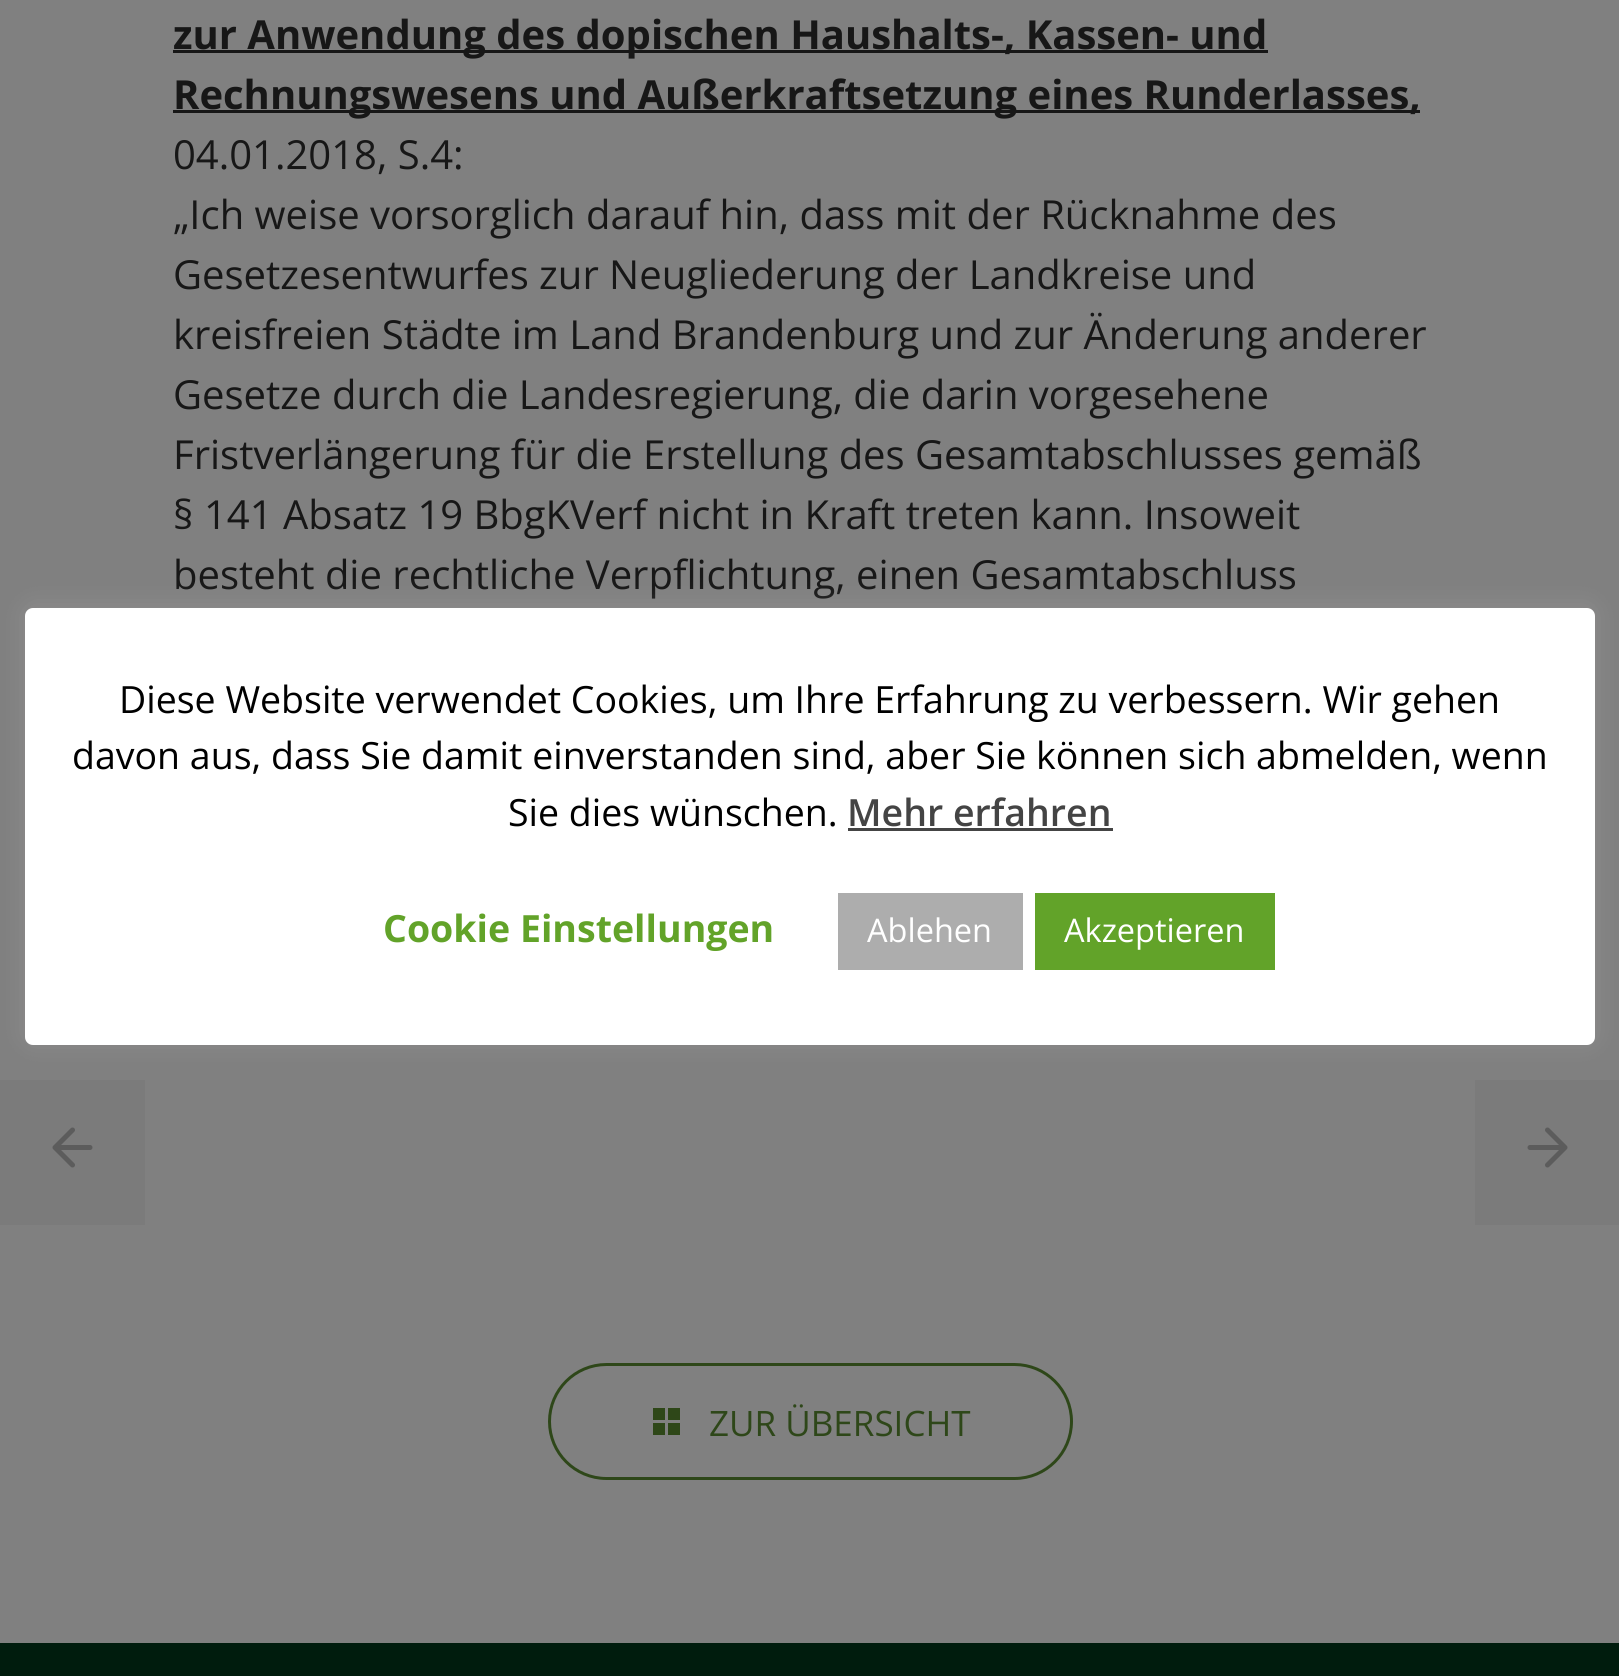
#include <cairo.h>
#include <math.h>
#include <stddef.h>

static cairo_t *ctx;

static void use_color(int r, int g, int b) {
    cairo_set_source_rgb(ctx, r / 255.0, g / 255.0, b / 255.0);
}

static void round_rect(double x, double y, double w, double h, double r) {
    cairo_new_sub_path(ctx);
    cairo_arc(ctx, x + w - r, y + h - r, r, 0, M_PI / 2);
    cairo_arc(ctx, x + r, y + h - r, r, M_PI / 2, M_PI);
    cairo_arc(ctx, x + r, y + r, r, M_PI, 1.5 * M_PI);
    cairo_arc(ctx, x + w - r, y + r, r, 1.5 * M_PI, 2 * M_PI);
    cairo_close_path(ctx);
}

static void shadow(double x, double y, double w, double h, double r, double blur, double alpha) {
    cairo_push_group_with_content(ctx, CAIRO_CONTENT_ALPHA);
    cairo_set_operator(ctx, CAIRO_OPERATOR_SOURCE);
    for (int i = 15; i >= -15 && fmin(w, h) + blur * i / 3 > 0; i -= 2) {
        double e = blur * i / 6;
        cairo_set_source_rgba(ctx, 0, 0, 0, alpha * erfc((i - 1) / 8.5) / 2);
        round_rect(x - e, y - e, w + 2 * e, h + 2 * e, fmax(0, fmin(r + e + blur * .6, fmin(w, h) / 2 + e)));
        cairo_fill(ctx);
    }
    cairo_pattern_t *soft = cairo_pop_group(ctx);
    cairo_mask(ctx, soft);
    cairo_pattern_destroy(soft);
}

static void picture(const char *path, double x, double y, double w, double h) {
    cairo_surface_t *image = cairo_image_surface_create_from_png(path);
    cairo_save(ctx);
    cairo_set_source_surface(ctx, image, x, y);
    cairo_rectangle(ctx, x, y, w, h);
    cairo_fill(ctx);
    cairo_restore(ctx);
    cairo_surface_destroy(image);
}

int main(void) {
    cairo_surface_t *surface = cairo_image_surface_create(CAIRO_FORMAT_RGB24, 1619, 1676);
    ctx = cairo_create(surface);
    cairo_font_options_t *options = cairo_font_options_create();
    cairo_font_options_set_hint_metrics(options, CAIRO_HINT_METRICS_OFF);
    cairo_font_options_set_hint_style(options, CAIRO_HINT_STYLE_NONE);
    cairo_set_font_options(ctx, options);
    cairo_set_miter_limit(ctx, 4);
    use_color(128, 128, 128);
    cairo_paint(ctx);
    use_color(23, 23, 23);
    cairo_rectangle(ctx, 173, 50, 1095, 3);
    cairo_fill(ctx);
    cairo_select_font_face(ctx, "Open Sans", CAIRO_FONT_SLANT_NORMAL, CAIRO_FONT_WEIGHT_BOLD);
    cairo_set_font_size(ctx, 40);
    cairo_move_to(ctx, 173, 49);
    cairo_show_text(ctx, "zur Anwendung des dopischen Haushalts-, Kassen- und");
    cairo_rectangle(ctx, 173, 110, 1247, 3);
    cairo_fill(ctx);
    cairo_move_to(ctx, 173, 109);
    cairo_show_text(ctx, "Rechnungswesens und Außerkraftsetzung eines Runderlasses,");
    cairo_select_font_face(ctx, "Open Sans", CAIRO_FONT_SLANT_NORMAL, CAIRO_FONT_WEIGHT_NORMAL);
    cairo_move_to(ctx, 173, 169);
    cairo_show_text(ctx, "04.01.2018, S.4:");
    cairo_move_to(ctx, 173, 229);
    cairo_show_text(ctx, "„Ich weise vorsorglich darauf hin, dass mit der Rücknahme des");
    cairo_move_to(ctx, 173, 289);
    cairo_show_text(ctx, "Gesetzesentwurfes zur Neugliederung der Landkreise und");
    cairo_move_to(ctx, 173, 349);
    cairo_show_text(ctx, "kreisfreien Städte im Land Brandenburg und zur Änderung anderer");
    cairo_move_to(ctx, 173, 409);
    cairo_show_text(ctx, "Gesetze durch die Landesregierung, die darin vorgesehene");
    cairo_move_to(ctx, 173, 469);
    cairo_show_text(ctx, "Fristverlängerung für die Erstellung des Gesamtabschlusses gemäß");
    cairo_move_to(ctx, 173, 529);
    cairo_show_text(ctx, "§ 141 Absatz 19 BbgKVerf nicht in Kraft treten kann. Insoweit");
    cairo_move_to(ctx, 173, 589);
    cairo_show_text(ctx, "besteht die rechtliche Verpflichtung, einen Gesamtabschluss");
    use_color(123, 123, 123);
    cairo_rectangle(ctx, 0, 1080, 145, 145);
    cairo_fill(ctx);
    cairo_new_path(ctx);
    cairo_move_to(ctx, 90, 1147.5);
    cairo_line_to(ctx, 55, 1147.5);
    cairo_move_to(ctx, 72.5, 1165);
    cairo_line_to(ctx, 55, 1147.5);
    cairo_line_to(ctx, 72.5, 1130);
    use_color(92, 92, 92);
    cairo_set_line_width(ctx, 5);
    cairo_set_line_cap(ctx, CAIRO_LINE_CAP_ROUND);
    cairo_set_line_join(ctx, CAIRO_LINE_JOIN_ROUND);
    cairo_stroke(ctx);
    use_color(123, 123, 123);
    cairo_rectangle(ctx, 1475, 1080, 144, 145);
    cairo_fill(ctx);
    cairo_new_path(ctx);
    cairo_move_to(ctx, 1530, 1147.5);
    cairo_line_to(ctx, 1565, 1147.5);
    cairo_move_to(ctx, 1547.5, 1130);
    cairo_line_to(ctx, 1565, 1147.5);
    cairo_line_to(ctx, 1547.5, 1165);
    use_color(92, 92, 92);
    cairo_stroke(ctx);
    round_rect(549.5, 1364.5, 522, 114, 57);
    use_color(46, 71, 25);
    cairo_set_line_width(ctx, 3);
    cairo_set_line_cap(ctx, CAIRO_LINE_CAP_BUTT);
    cairo_set_line_join(ctx, CAIRO_LINE_JOIN_MITER);
    cairo_stroke(ctx);
    picture("img1.png", 653, 1408, 27, 27);
    cairo_set_font_size(ctx, 35);
    cairo_move_to(ctx, 709, 1436);
    cairo_show_text(ctx, "ZUR ÜBERSICHT");
    use_color(172, 171, 171);
    shadow(25, 605, 1570, 438, 8, 12.5, 0.3);
    use_color(255, 255, 255);
    round_rect(25, 608, 1570, 437, 8);
    cairo_fill(ctx);
    cairo_set_font_size(ctx, 37.5);
    use_color(0, 0, 0);
    cairo_move_to(ctx, 119, 713);
    cairo_show_text(ctx, "Diese Website verwendet Cookies, um Ihre Erfahrung zu verbessern. Wir gehen");
    cairo_move_to(ctx, 72, 769);
    cairo_show_text(ctx, "davon aus, dass Sie damit einverstanden sind, aber Sie können sich abmelden, wenn");
    cairo_move_to(ctx, 508, 826);
    cairo_show_text(ctx, "Sie dies wünschen.");
    cairo_select_font_face(ctx, "Open Sans SemiBold", CAIRO_FONT_SLANT_NORMAL, CAIRO_FONT_WEIGHT_NORMAL);
    use_color(68, 68, 68);
    cairo_move_to(ctx, 847, 826);
    cairo_show_text(ctx, "Mehr erfahren");
    cairo_rectangle(ctx, 848, 828, 265, 3);
    cairo_fill(ctx);
    cairo_select_font_face(ctx, "Open Sans", CAIRO_FONT_SLANT_NORMAL, CAIRO_FONT_WEIGHT_BOLD);
    use_color(98, 163, 41);
    cairo_move_to(ctx, 383, 942);
    cairo_show_text(ctx, "Cookie Einstellungen");
    use_color(173, 173, 173);
    cairo_rectangle(ctx, 838, 893, 185, 77);
    cairo_fill(ctx);
    cairo_select_font_face(ctx, "Open Sans", CAIRO_FONT_SLANT_NORMAL, CAIRO_FONT_WEIGHT_NORMAL);
    cairo_set_font_size(ctx, 32.5);
    use_color(255, 255, 255);
    cairo_move_to(ctx, 867, 942);
    cairo_show_text(ctx, "Ablehen");
    use_color(98, 163, 41);
    cairo_rectangle(ctx, 1035, 893, 240, 77);
    cairo_fill(ctx);
    use_color(255, 255, 255);
    cairo_move_to(ctx, 1064, 942);
    cairo_show_text(ctx, "Akzeptieren");
    use_color(0, 28, 13);
    cairo_rectangle(ctx, 0, 1643, 1619, 33);
    cairo_fill(ctx);
    cairo_surface_write_to_png(surface, "result.png");
    cairo_font_options_destroy(options);
    cairo_destroy(ctx);
    cairo_surface_destroy(surface);
    return 0;
}
